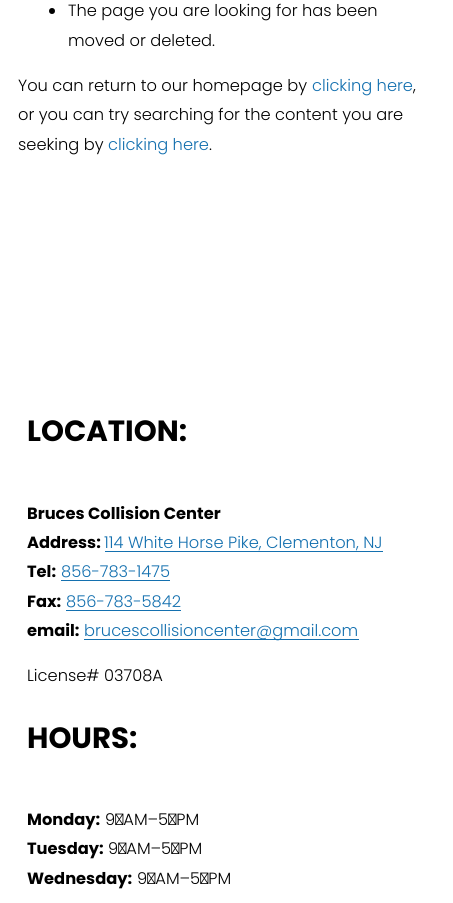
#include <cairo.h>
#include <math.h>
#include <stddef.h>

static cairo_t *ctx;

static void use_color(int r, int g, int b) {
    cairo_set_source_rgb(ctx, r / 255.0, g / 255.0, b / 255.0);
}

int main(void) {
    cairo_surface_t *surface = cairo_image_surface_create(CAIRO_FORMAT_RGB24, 453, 903);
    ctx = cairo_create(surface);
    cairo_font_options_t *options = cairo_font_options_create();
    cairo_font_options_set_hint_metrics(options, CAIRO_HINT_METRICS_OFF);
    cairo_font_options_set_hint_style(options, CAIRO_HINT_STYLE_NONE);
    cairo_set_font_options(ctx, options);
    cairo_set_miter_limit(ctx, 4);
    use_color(255, 255, 255);
    cairo_paint(ctx);
    use_color(0, 0, 0);
    cairo_arc(ctx, 52, 11, 3, 0, 2 * M_PI);
    cairo_fill(ctx);
    cairo_select_font_face(ctx, "Poppins Light", CAIRO_FONT_SLANT_NORMAL, CAIRO_FONT_WEIGHT_NORMAL);
    cairo_set_font_size(ctx, 16.25);
    cairo_move_to(ctx, 68, 16);
    cairo_show_text(ctx, "The page you are looking for has been");
    cairo_move_to(ctx, 68, 46);
    cairo_show_text(ctx, "moved or deleted.");
    cairo_move_to(ctx, 18, 91);
    cairo_show_text(ctx, "You can return to our homepage by");
    use_color(20, 112, 175);
    cairo_move_to(ctx, 312, 91);
    cairo_show_text(ctx, "clicking here");
    use_color(0, 0, 0);
    cairo_move_to(ctx, 413, 91);
    cairo_show_text(ctx, ",");
    cairo_move_to(ctx, 18, 120);
    cairo_show_text(ctx, "or you can try searching for the content you are");
    cairo_move_to(ctx, 18, 150);
    cairo_show_text(ctx, "seeking by");
    use_color(20, 112, 175);
    cairo_move_to(ctx, 108, 150);
    cairo_show_text(ctx, "clicking here");
    use_color(0, 0, 0);
    cairo_move_to(ctx, 209, 150);
    cairo_show_text(ctx, ".");
    cairo_select_font_face(ctx, "Poppins", CAIRO_FONT_SLANT_NORMAL, CAIRO_FONT_WEIGHT_BOLD);
    cairo_set_font_size(ctx, 29.25);
    cairo_move_to(ctx, 27, 441);
    cairo_show_text(ctx, "LOCATION:");
    cairo_set_font_size(ctx, 16.25);
    cairo_move_to(ctx, 27, 519);
    cairo_show_text(ctx, "Bruces Collision Center");
    cairo_move_to(ctx, 27, 548);
    cairo_show_text(ctx, "Address:");
    cairo_select_font_face(ctx, "Poppins Light", CAIRO_FONT_SLANT_NORMAL, CAIRO_FONT_WEIGHT_NORMAL);
    use_color(20, 112, 175);
    cairo_move_to(ctx, 104, 548);
    cairo_show_text(ctx, "114 White Horse Pike, Clementon, NJ");
    cairo_rectangle(ctx, 105, 551, 278, 1);
    cairo_fill(ctx);
    cairo_select_font_face(ctx, "Poppins", CAIRO_FONT_SLANT_NORMAL, CAIRO_FONT_WEIGHT_BOLD);
    use_color(0, 0, 0);
    cairo_move_to(ctx, 27, 577);
    cairo_show_text(ctx, "Tel:");
    cairo_select_font_face(ctx, "Poppins Light", CAIRO_FONT_SLANT_NORMAL, CAIRO_FONT_WEIGHT_NORMAL);
    use_color(20, 112, 175);
    cairo_move_to(ctx, 61, 577);
    cairo_show_text(ctx, "856-783-1475");
    cairo_rectangle(ctx, 61, 580, 109, 1);
    cairo_fill(ctx);
    cairo_select_font_face(ctx, "Poppins", CAIRO_FONT_SLANT_NORMAL, CAIRO_FONT_WEIGHT_BOLD);
    use_color(0, 0, 0);
    cairo_move_to(ctx, 27, 607);
    cairo_show_text(ctx, "Fax:");
    cairo_select_font_face(ctx, "Poppins Light", CAIRO_FONT_SLANT_NORMAL, CAIRO_FONT_WEIGHT_NORMAL);
    use_color(20, 112, 175);
    cairo_move_to(ctx, 66, 607);
    cairo_show_text(ctx, "856-783-5842");
    cairo_rectangle(ctx, 66, 610, 115, 1);
    cairo_fill(ctx);
    cairo_select_font_face(ctx, "Poppins", CAIRO_FONT_SLANT_NORMAL, CAIRO_FONT_WEIGHT_BOLD);
    use_color(0, 0, 0);
    cairo_move_to(ctx, 27, 636);
    cairo_show_text(ctx, "email:");
    use_color(20, 112, 175);
    cairo_rectangle(ctx, 84, 639, 275, 1);
    cairo_fill(ctx);
    cairo_select_font_face(ctx, "Poppins Light", CAIRO_FONT_SLANT_NORMAL, CAIRO_FONT_WEIGHT_NORMAL);
    cairo_move_to(ctx, 84, 636);
    cairo_show_text(ctx, "brucescollisioncenter@gmail.com");
    use_color(0, 0, 0);
    cairo_move_to(ctx, 27, 681);
    cairo_show_text(ctx, "License# 03708A");
    cairo_select_font_face(ctx, "Poppins", CAIRO_FONT_SLANT_NORMAL, CAIRO_FONT_WEIGHT_BOLD);
    cairo_set_font_size(ctx, 29.25);
    cairo_move_to(ctx, 27, 748);
    cairo_show_text(ctx, "HOURS:");
    cairo_set_font_size(ctx, 16.25);
    cairo_move_to(ctx, 27, 825);
    cairo_show_text(ctx, "Monday:");
    cairo_select_font_face(ctx, "Poppins Light", CAIRO_FONT_SLANT_NORMAL, CAIRO_FONT_WEIGHT_NORMAL);
    cairo_move_to(ctx, 105, 825);
    cairo_show_text(ctx, "9 AM–5 PM");
    cairo_select_font_face(ctx, "Poppins", CAIRO_FONT_SLANT_NORMAL, CAIRO_FONT_WEIGHT_BOLD);
    cairo_move_to(ctx, 27, 854);
    cairo_show_text(ctx, "Tuesday:");
    cairo_select_font_face(ctx, "Poppins Light", CAIRO_FONT_SLANT_NORMAL, CAIRO_FONT_WEIGHT_NORMAL);
    cairo_move_to(ctx, 108, 854);
    cairo_show_text(ctx, "9 AM–5 PM");
    cairo_select_font_face(ctx, "Poppins", CAIRO_FONT_SLANT_NORMAL, CAIRO_FONT_WEIGHT_BOLD);
    cairo_move_to(ctx, 27, 884);
    cairo_show_text(ctx, "Wednesday:");
    cairo_select_font_face(ctx, "Poppins Light", CAIRO_FONT_SLANT_NORMAL, CAIRO_FONT_WEIGHT_NORMAL);
    cairo_move_to(ctx, 137, 884);
    cairo_show_text(ctx, "9 AM–5 PM");
    cairo_surface_write_to_png(surface, "result.png");
    cairo_font_options_destroy(options);
    cairo_destroy(ctx);
    cairo_surface_destroy(surface);
    return 0;
}
